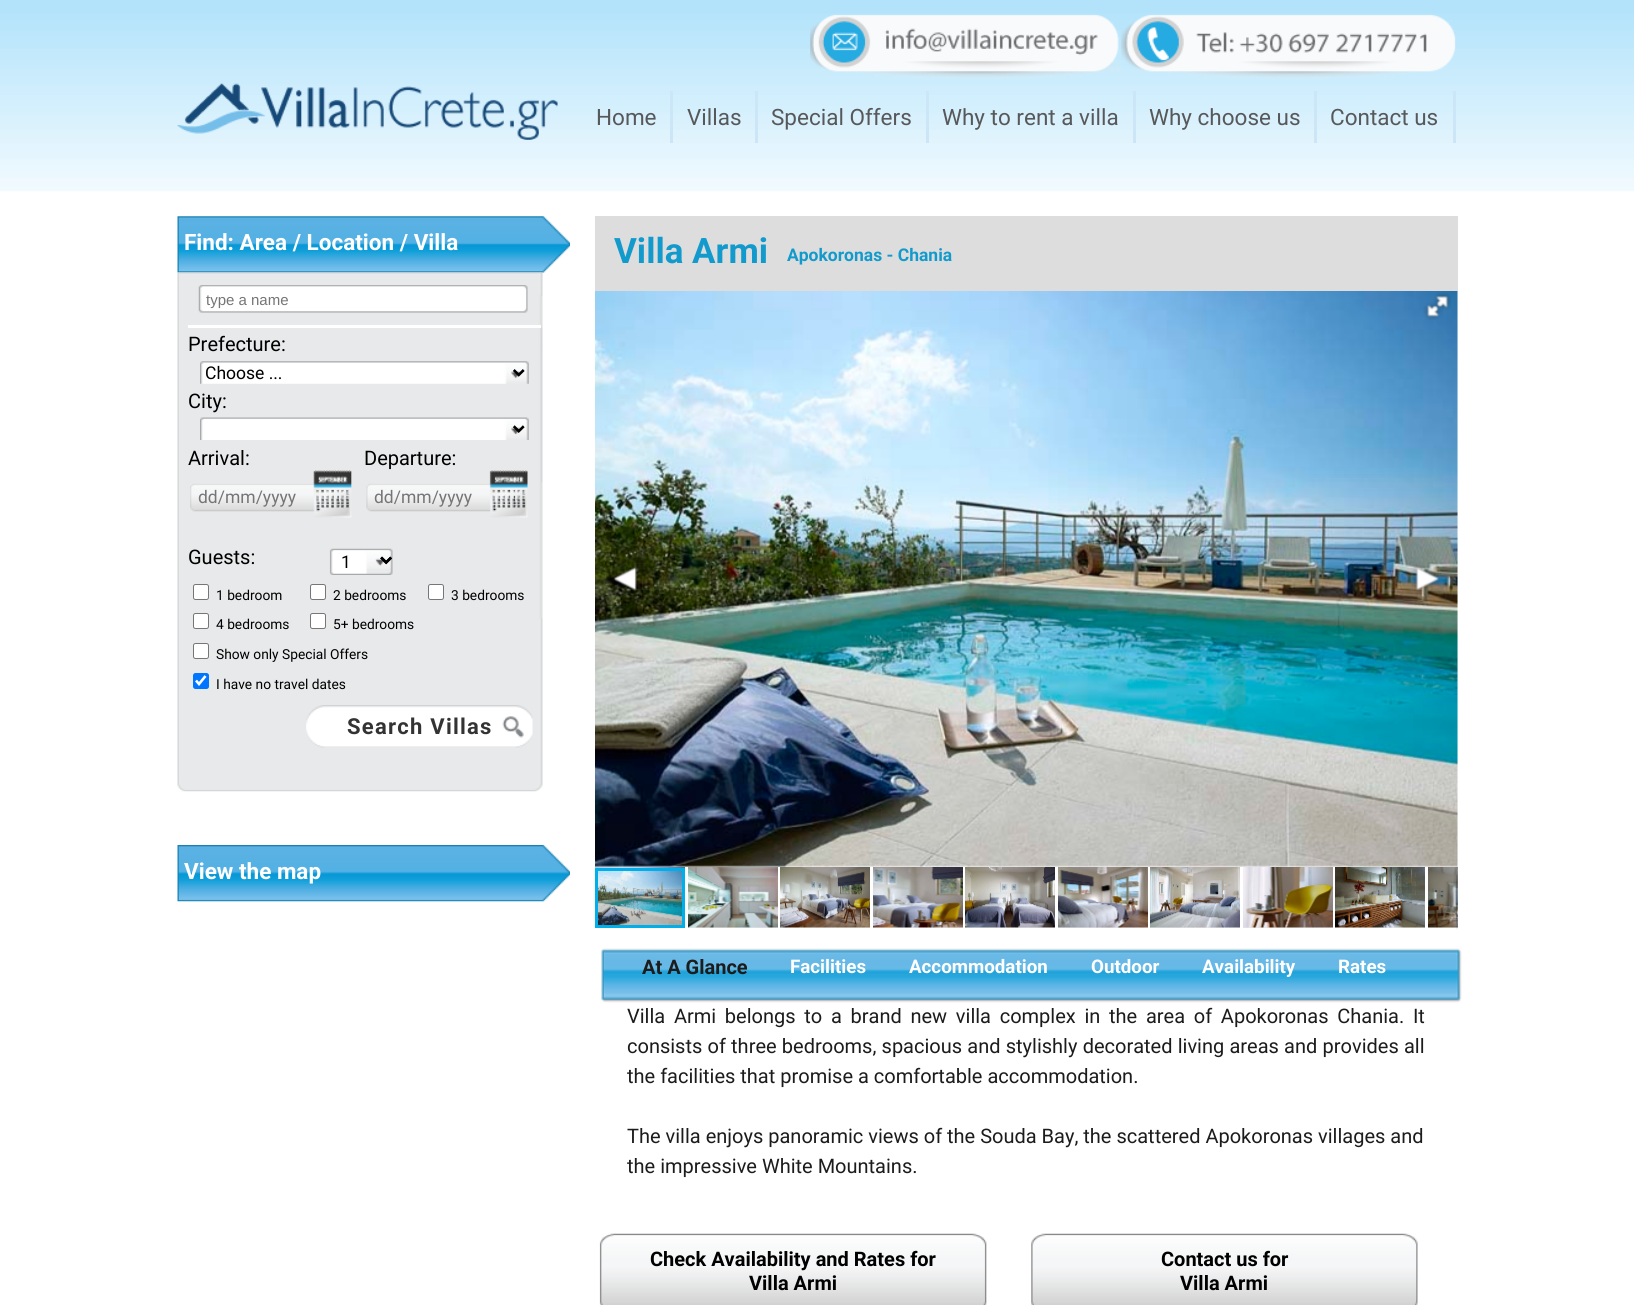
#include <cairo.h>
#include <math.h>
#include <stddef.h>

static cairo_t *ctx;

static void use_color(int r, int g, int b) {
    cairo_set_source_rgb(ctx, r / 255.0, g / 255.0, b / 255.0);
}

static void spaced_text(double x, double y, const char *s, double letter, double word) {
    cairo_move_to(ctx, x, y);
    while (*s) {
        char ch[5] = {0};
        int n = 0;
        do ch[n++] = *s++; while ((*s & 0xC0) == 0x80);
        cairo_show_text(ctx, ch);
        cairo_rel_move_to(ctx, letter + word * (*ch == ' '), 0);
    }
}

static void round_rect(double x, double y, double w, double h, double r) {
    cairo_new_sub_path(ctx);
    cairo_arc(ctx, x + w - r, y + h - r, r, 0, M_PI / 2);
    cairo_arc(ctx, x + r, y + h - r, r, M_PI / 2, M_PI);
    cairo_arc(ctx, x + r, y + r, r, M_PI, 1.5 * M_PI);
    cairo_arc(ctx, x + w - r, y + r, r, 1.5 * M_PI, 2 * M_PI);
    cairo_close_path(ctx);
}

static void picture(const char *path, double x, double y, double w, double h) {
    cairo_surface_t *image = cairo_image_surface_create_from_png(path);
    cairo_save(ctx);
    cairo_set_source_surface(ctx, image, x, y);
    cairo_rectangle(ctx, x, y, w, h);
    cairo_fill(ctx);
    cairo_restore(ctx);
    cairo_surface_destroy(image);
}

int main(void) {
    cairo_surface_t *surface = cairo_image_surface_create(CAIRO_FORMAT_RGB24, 1634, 1305);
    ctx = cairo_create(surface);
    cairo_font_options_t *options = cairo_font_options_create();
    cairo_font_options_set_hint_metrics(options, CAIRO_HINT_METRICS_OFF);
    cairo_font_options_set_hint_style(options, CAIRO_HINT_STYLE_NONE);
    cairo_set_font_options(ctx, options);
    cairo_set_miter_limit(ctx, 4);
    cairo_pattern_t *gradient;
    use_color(255, 255, 255);
    cairo_paint(ctx);
    picture("img1.png", 0, 0, 1634, 192);
    picture("img2.png", 177, 83, 381, 57);
    picture("img3.png", 810, 14, 311, 64);
    picture("img4.png", 1121, 14, 335, 64);
    use_color(204, 230, 247);
    cairo_rectangle(ctx, 670, 91, 3, 52);
    cairo_fill(ctx);
    cairo_select_font_face(ctx, "Roboto", CAIRO_FONT_SLANT_NORMAL, CAIRO_FONT_WEIGHT_NORMAL);
    cairo_set_font_size(ctx, 22.5);
    use_color(87, 88, 90);
    cairo_move_to(ctx, 596, 125);
    cairo_show_text(ctx, "Home");
    use_color(204, 230, 247);
    cairo_rectangle(ctx, 755, 91, 3, 52);
    cairo_fill(ctx);
    use_color(87, 88, 90);
    cairo_move_to(ctx, 687, 125);
    cairo_show_text(ctx, "Villas");
    use_color(204, 230, 247);
    cairo_rectangle(ctx, 926, 91, 3, 52);
    cairo_fill(ctx);
    use_color(87, 88, 90);
    cairo_move_to(ctx, 771, 125);
    cairo_show_text(ctx, "Special Offers");
    use_color(204, 230, 247);
    cairo_rectangle(ctx, 1133, 91, 3, 52);
    cairo_fill(ctx);
    use_color(87, 88, 90);
    cairo_move_to(ctx, 942, 125);
    cairo_show_text(ctx, "Why to rent a villa");
    use_color(204, 230, 247);
    cairo_rectangle(ctx, 1314, 91, 3, 52);
    cairo_fill(ctx);
    use_color(87, 88, 90);
    cairo_move_to(ctx, 1149, 125);
    cairo_show_text(ctx, "Why choose us");
    use_color(204, 230, 247);
    cairo_rectangle(ctx, 1453, 91, 3, 52);
    cairo_fill(ctx);
    use_color(87, 88, 90);
    cairo_move_to(ctx, 1330, 125);
    cairo_show_text(ctx, "Contact us");
    picture("img5.png", 177, 216, 393, 57);
    cairo_select_font_face(ctx, "Roboto", CAIRO_FONT_SLANT_NORMAL, CAIRO_FONT_WEIGHT_BOLD);
    use_color(255, 255, 255);
    cairo_move_to(ctx, 184, 250);
    cairo_show_text(ctx, "Find: Area / Location / Villa");
    picture("img6.png", 177, 272, 366, 520);
    picture("img7.png", 198, 285, 330, 28);
    cairo_select_font_face(ctx, "Liberation Sans", CAIRO_FONT_SLANT_NORMAL, CAIRO_FONT_WEIGHT_NORMAL);
    cairo_set_font_size(ctx, 15);
    use_color(117, 117, 117);
    cairo_move_to(ctx, 206, 305);
    cairo_show_text(ctx, "type a name");
    use_color(255, 255, 255);
    cairo_rectangle(ctx, 188, 325, 353, 3);
    cairo_fill(ctx);
    cairo_select_font_face(ctx, "Roboto", CAIRO_FONT_SLANT_NORMAL, CAIRO_FONT_WEIGHT_NORMAL);
    cairo_set_font_size(ctx, 20);
    use_color(0, 0, 0);
    cairo_move_to(ctx, 188, 351);
    cairo_show_text(ctx, "Prefecture:");
    picture("img8.png", 200, 361, 329, 23);
    cairo_set_font_size(ctx, 17.5);
    cairo_move_to(ctx, 205, 379);
    cairo_show_text(ctx, "Choose ...");
    cairo_set_font_size(ctx, 20);
    cairo_move_to(ctx, 188, 408);
    cairo_show_text(ctx, "City:");
    picture("img9.png", 200, 417, 329, 23);
    cairo_move_to(ctx, 188, 465);
    cairo_show_text(ctx, "Arrival:");
    picture("img10.png", 190, 470, 162, 48);
    cairo_set_font_size(ctx, 17.5);
    use_color(117, 117, 117);
    cairo_move_to(ctx, 198, 503);
    cairo_show_text(ctx, "dd/mm/yyyy");
    cairo_set_font_size(ctx, 20);
    use_color(0, 0, 0);
    cairo_move_to(ctx, 364, 465);
    cairo_show_text(ctx, "Departure:");
    picture("img11.png", 366, 470, 162, 48);
    cairo_set_font_size(ctx, 17.5);
    use_color(117, 117, 117);
    cairo_move_to(ctx, 374, 503);
    cairo_show_text(ctx, "dd/mm/yyyy");
    cairo_set_font_size(ctx, 20);
    use_color(0, 0, 0);
    cairo_move_to(ctx, 188, 564);
    cairo_show_text(ctx, "Guests:");
    picture("img12.png", 329, 548, 64, 27);
    cairo_new_path(ctx);
    cairo_move_to(ctx, 381, 557.5);
    cairo_line_to(ctx, 386, 562.5);
    cairo_line_to(ctx, 391, 557.5);
    cairo_set_line_width(ctx, 2.5);
    cairo_stroke(ctx);
    cairo_set_font_size(ctx, 17.5);
    cairo_move_to(ctx, 341, 568);
    cairo_show_text(ctx, "1");
    use_color(255, 255, 255);
    round_rect(193.5, 584.5, 15, 15, 2);
    cairo_fill_preserve(ctx);
    use_color(118, 118, 118);
    cairo_set_line_width(ctx, 1);
    cairo_stroke(ctx);
    cairo_set_font_size(ctx, 13.75);
    use_color(0, 0, 0);
    cairo_move_to(ctx, 216, 600);
    cairo_show_text(ctx, "1 bedroom");
    use_color(255, 255, 255);
    round_rect(310.5, 584.5, 15, 15, 2);
    cairo_fill_preserve(ctx);
    use_color(118, 118, 118);
    cairo_stroke(ctx);
    use_color(0, 0, 0);
    cairo_move_to(ctx, 333, 600);
    cairo_show_text(ctx, "2 bedrooms");
    use_color(255, 255, 255);
    round_rect(428.5, 584.5, 15, 15, 2);
    cairo_fill_preserve(ctx);
    use_color(118, 118, 118);
    cairo_stroke(ctx);
    use_color(0, 0, 0);
    cairo_move_to(ctx, 451, 600);
    cairo_show_text(ctx, "3 bedrooms");
    use_color(255, 255, 255);
    round_rect(193.5, 613.5, 15, 15, 2);
    cairo_fill_preserve(ctx);
    use_color(118, 118, 118);
    cairo_stroke(ctx);
    use_color(0, 0, 0);
    cairo_move_to(ctx, 216, 629);
    cairo_show_text(ctx, "4 bedrooms");
    use_color(255, 255, 255);
    round_rect(310.5, 613.5, 15, 15, 2);
    cairo_fill_preserve(ctx);
    use_color(118, 118, 118);
    cairo_stroke(ctx);
    use_color(0, 0, 0);
    cairo_move_to(ctx, 333, 629);
    cairo_show_text(ctx, "5+ bedrooms");
    use_color(255, 255, 255);
    round_rect(193.5, 643.5, 15, 15, 2);
    cairo_fill_preserve(ctx);
    use_color(118, 118, 118);
    cairo_stroke(ctx);
    use_color(0, 0, 0);
    cairo_move_to(ctx, 216, 659);
    cairo_show_text(ctx, "Show only Special Offers");
    use_color(0, 117, 255);
    round_rect(193, 673, 16, 16, 2.5);
    cairo_fill(ctx);
    cairo_new_path(ctx);
    cairo_move_to(ctx, 196, 680.5);
    cairo_line_to(ctx, 199, 684);
    cairo_line_to(ctx, 205.5, 676);
    use_color(255, 255, 255);
    cairo_set_line_width(ctx, 2.6);
    cairo_stroke(ctx);
    use_color(0, 0, 0);
    cairo_move_to(ctx, 216, 689);
    cairo_show_text(ctx, "I have no travel dates");
    picture("img13.png", 306, 705, 227, 43);
    cairo_select_font_face(ctx, "Roboto", CAIRO_FONT_SLANT_NORMAL, CAIRO_FONT_WEIGHT_BOLD);
    cairo_set_font_size(ctx, 22);
    use_color(51, 51, 51);
    spaced_text(347, 734, "Search Villas", 1.25, 0);
    picture("img14.png", 177, 845, 393, 57);
    cairo_set_font_size(ctx, 22.5);
    use_color(255, 255, 255);
    cairo_move_to(ctx, 184, 879);
    cairo_show_text(ctx, "View the map");
    use_color(221, 221, 221);
    cairo_rectangle(ctx, 595, 216, 863, 75);
    cairo_fill(ctx);
    cairo_set_font_size(ctx, 35);
    use_color(18, 154, 204);
    cairo_move_to(ctx, 614, 263);
    cairo_show_text(ctx, "Villa Armi");
    cairo_set_font_size(ctx, 17.5);
    cairo_move_to(ctx, 787, 261);
    cairo_show_text(ctx, "Apokoronas - Chania");
    picture("img15.png", 595, 291, 863, 576);
    picture("img16.png", 1423, 292, 28, 28);
    picture("img17.png", 613, 567, 26, 24);
    picture("img18.png", 1412, 565, 28, 27);
    use_color(229, 229, 229);
    cairo_rectangle(ctx, 1428, 927, 30, 1);
    cairo_fill(ctx);
    picture("img28.png", 1428, 867, 30, 61);
    gradient = cairo_pattern_create_radial(0, 0, 0, 0, 0, 1);
    cairo_pattern_set_matrix(gradient, &(cairo_matrix_t){1.0 / 6.2, 0, 0, 1.0 / 33, -1.0 * 1458 / 6.2, -1.0 * 898 / 33});
    cairo_pattern_add_color_stop_rgba(gradient, 0, 0, 0, 0, 0.4);
    cairo_pattern_add_color_stop_rgba(gradient, 1, 0, 0, 0, 0);
    cairo_set_source(ctx, gradient);
    cairo_pattern_destroy(gradient);
    cairo_rectangle(ctx, 1452, 865, 6, 65);
    cairo_fill(ctx);
    gradient = cairo_pattern_create_linear(1457, 865, 1457, 930);
    cairo_pattern_add_color_stop_rgba(gradient, 0, 0, 0, 0, 0);
    cairo_pattern_add_color_stop_rgba(gradient, 0.25, 0, 0, 0, 0.2);
    cairo_pattern_add_color_stop_rgba(gradient, 0.75, 0, 0, 0, 0.3);
    cairo_pattern_add_color_stop_rgba(gradient, 1, 0, 0, 0, 0);
    cairo_set_source(ctx, gradient);
    cairo_pattern_destroy(gradient);
    cairo_rectangle(ctx, 1456, 865, 1, 65);
    cairo_fill(ctx);
    picture("img19.png", 595, 867, 90, 58);
    use_color(229, 229, 229);
    cairo_rectangle(ctx, 688, 927, 90, 1);
    cairo_fill(ctx);
    picture("img20.png", 688, 867, 90, 61);
    cairo_rectangle(ctx, 780, 927, 90, 1);
    cairo_fill(ctx);
    picture("img21.png", 780, 867, 90, 61);
    cairo_rectangle(ctx, 873, 927, 90, 1);
    cairo_fill(ctx);
    picture("img22.png", 873, 867, 90, 61);
    cairo_rectangle(ctx, 965, 927, 90, 1);
    cairo_fill(ctx);
    picture("img23.png", 965, 867, 90, 61);
    cairo_rectangle(ctx, 1058, 927, 90, 1);
    cairo_fill(ctx);
    picture("img24.png", 1058, 867, 90, 61);
    cairo_rectangle(ctx, 1150, 927, 90, 1);
    cairo_fill(ctx);
    picture("img25.png", 1150, 867, 90, 61);
    cairo_rectangle(ctx, 1243, 927, 90, 1);
    cairo_fill(ctx);
    picture("img26.png", 1243, 867, 90, 61);
    cairo_rectangle(ctx, 1335, 927, 90, 1);
    cairo_fill(ctx);
    picture("img27.png", 1335, 867, 90, 61);
    cairo_rectangle(ctx, 596.5, 869.5, 87, 57);
    use_color(0, 175, 234);
    cairo_set_line_width(ctx, 3);
    cairo_stroke(ctx);
    picture("img29.png", 601, 948, 861, 55);
    cairo_set_font_size(ctx, 20);
    use_color(28, 28, 28);
    cairo_move_to(ctx, 642, 974);
    cairo_show_text(ctx, "At A Glance");
    cairo_set_font_size(ctx, 18.75);
    use_color(255, 255, 255);
    cairo_move_to(ctx, 790, 973);
    cairo_show_text(ctx, "Facilities");
    cairo_move_to(ctx, 909, 973);
    cairo_show_text(ctx, "Accommodation");
    cairo_move_to(ctx, 1091, 973);
    cairo_show_text(ctx, "Outdoor");
    cairo_move_to(ctx, 1202, 973);
    cairo_show_text(ctx, "Availability");
    cairo_move_to(ctx, 1338, 973);
    cairo_show_text(ctx, "Rates");
    cairo_select_font_face(ctx, "Roboto", CAIRO_FONT_SLANT_NORMAL, CAIRO_FONT_WEIGHT_NORMAL);
    cairo_set_font_size(ctx, 20);
    use_color(28, 28, 28);
    spaced_text(627, 1023, "Villa Armi belongs to a brand new villa complex in the area of Apokoronas Chania. It", 0, 3.75);
    spaced_text(627, 1053, "consists of three bedrooms, spacious and stylishly decorated living areas and provides all", 0, 0.25);
    cairo_move_to(ctx, 627, 1083);
    cairo_show_text(ctx, "the facilities that promise a comfortable accommodation.");
    cairo_move_to(ctx, 627, 1143);
    cairo_show_text(ctx, "The villa enjoys panoramic views of the Souda Bay, the scattered Apokoronas villages and");
    cairo_move_to(ctx, 627, 1173);
    cairo_show_text(ctx, "the impressive White Mountains.");
    picture("img30.png", 599, 1233, 388, 72);
    cairo_select_font_face(ctx, "Roboto", CAIRO_FONT_SLANT_NORMAL, CAIRO_FONT_WEIGHT_BOLD);
    use_color(0, 0, 0);
    cairo_move_to(ctx, 650, 1266);
    cairo_show_text(ctx, "Check Availability and Rates for");
    cairo_move_to(ctx, 749, 1290);
    cairo_show_text(ctx, "Villa Armi");
    picture("img31.png", 1031, 1233, 387, 72);
    cairo_move_to(ctx, 1161, 1266);
    cairo_show_text(ctx, "Contact us for");
    cairo_move_to(ctx, 1180, 1290);
    cairo_show_text(ctx, "Villa Armi");
    cairo_surface_write_to_png(surface, "result.png");
    cairo_font_options_destroy(options);
    cairo_destroy(ctx);
    cairo_surface_destroy(surface);
    return 0;
}
